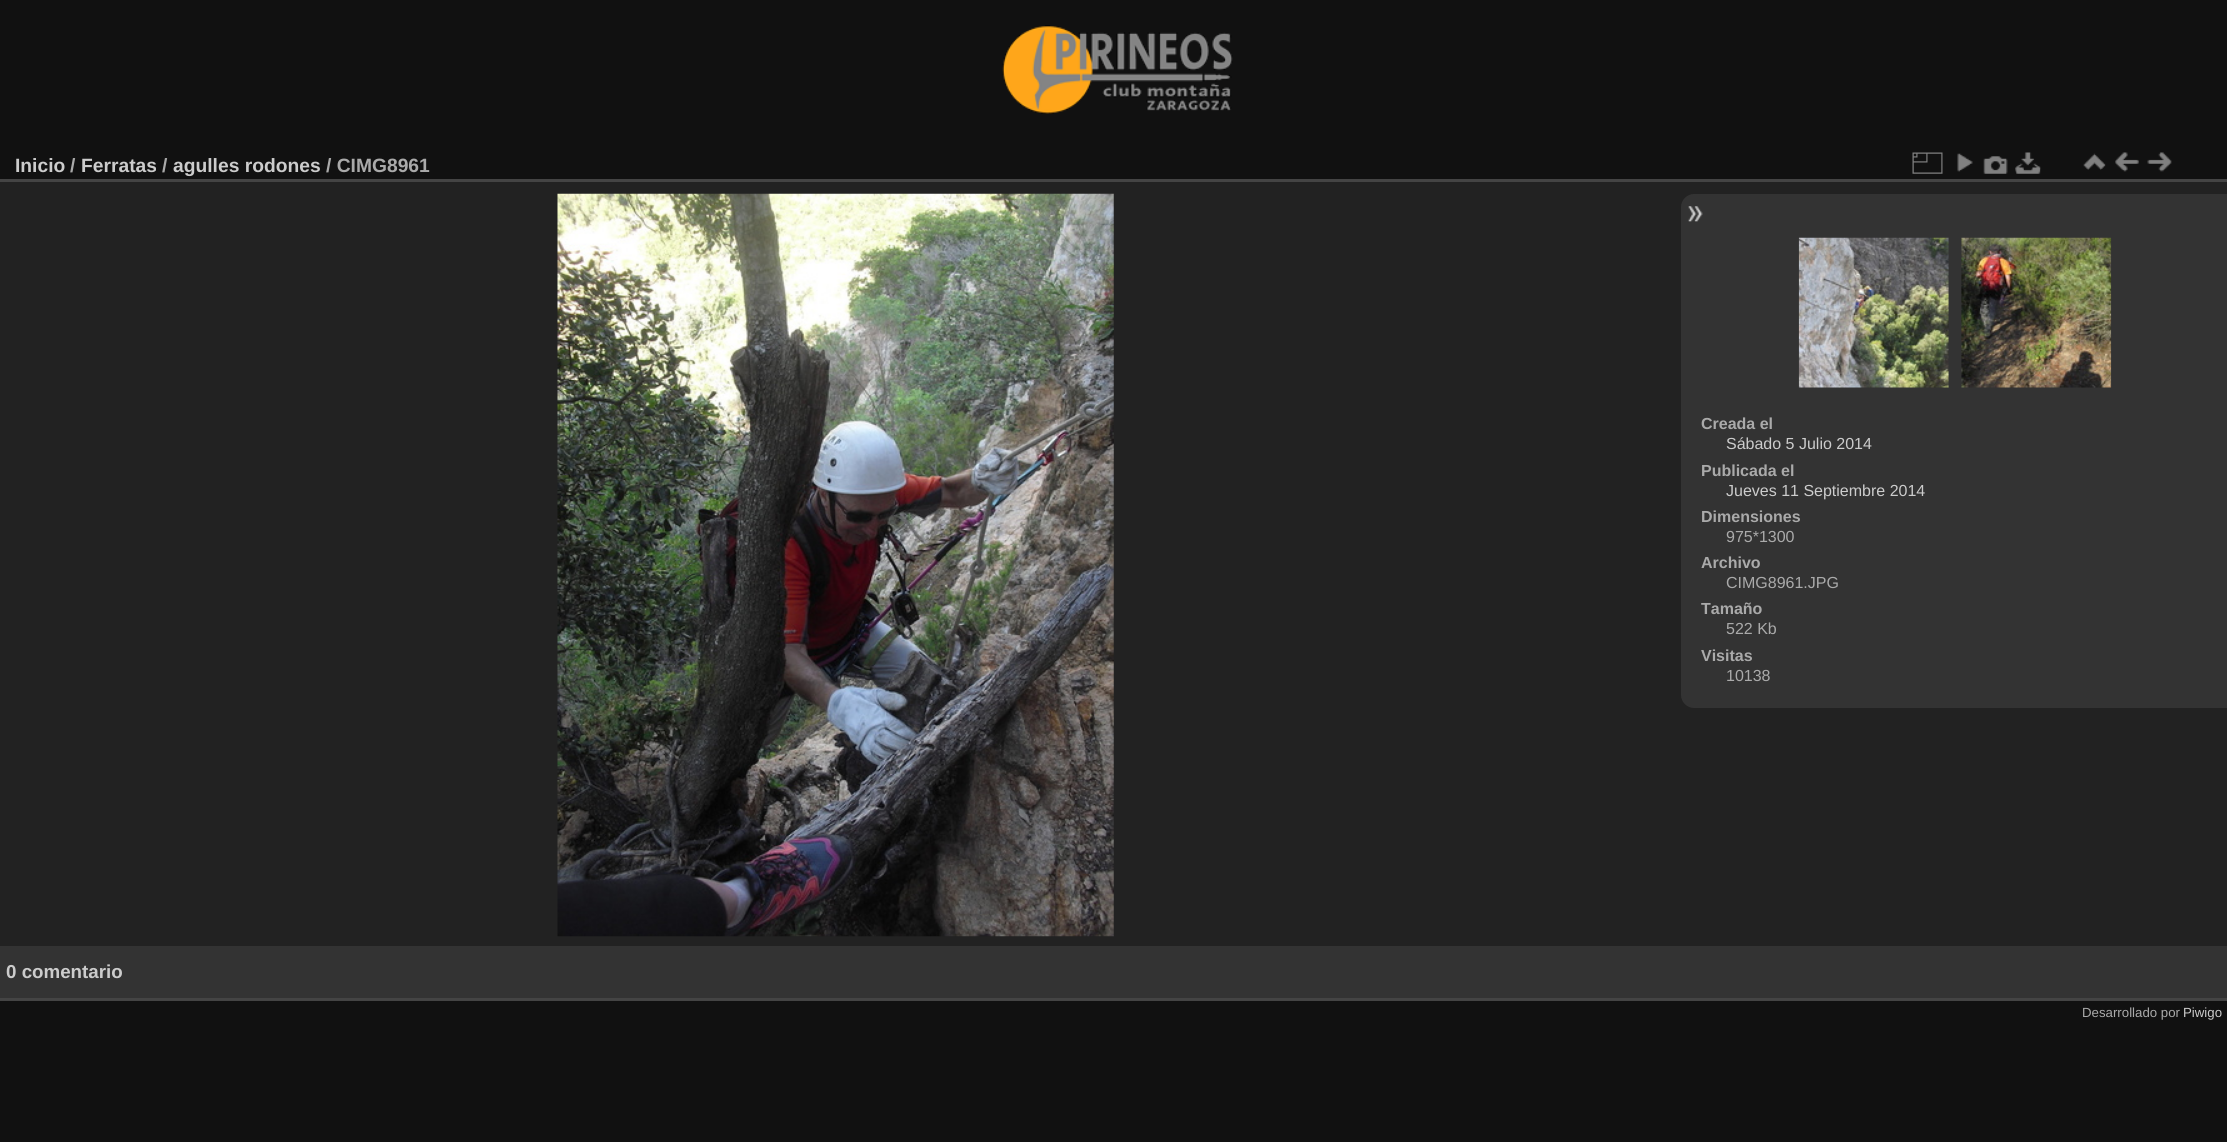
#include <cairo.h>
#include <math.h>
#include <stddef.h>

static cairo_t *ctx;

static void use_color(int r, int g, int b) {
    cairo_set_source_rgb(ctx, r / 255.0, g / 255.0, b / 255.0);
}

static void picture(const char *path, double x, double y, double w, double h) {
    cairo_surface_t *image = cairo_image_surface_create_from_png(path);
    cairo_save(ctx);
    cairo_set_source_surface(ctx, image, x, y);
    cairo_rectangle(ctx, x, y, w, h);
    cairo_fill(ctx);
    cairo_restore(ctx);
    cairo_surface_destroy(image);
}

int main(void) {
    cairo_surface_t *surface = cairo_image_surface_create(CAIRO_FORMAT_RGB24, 2227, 1142);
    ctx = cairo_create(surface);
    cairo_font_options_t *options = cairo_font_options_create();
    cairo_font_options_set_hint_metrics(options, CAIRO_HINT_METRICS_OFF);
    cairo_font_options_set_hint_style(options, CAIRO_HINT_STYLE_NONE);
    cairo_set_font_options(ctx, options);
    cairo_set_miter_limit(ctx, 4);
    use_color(17, 17, 17);
    cairo_paint(ctx);
    picture("img1.png", 1002, 25, 231, 89);
    use_color(34, 34, 34);
    cairo_rectangle(ctx, 0, 182, 2227, 764);
    cairo_fill(ctx);
    use_color(68, 68, 68);
    cairo_rectangle(ctx, 0, 998, 2227, 3);
    cairo_fill(ctx);
    cairo_rectangle(ctx, 0, 179, 2227, 3);
    cairo_fill(ctx);
    cairo_select_font_face(ctx, "Liberation Sans", CAIRO_FONT_SLANT_NORMAL, CAIRO_FONT_WEIGHT_BOLD);
    cairo_set_font_size(ctx, 19.25);
    use_color(204, 204, 204);
    cairo_move_to(ctx, 15, 172);
    cairo_show_text(ctx, "Inicio");
    use_color(170, 170, 170);
    cairo_move_to(ctx, 70, 172);
    cairo_show_text(ctx, "/");
    use_color(204, 204, 204);
    cairo_move_to(ctx, 81, 172);
    cairo_show_text(ctx, "Ferratas");
    use_color(170, 170, 170);
    cairo_move_to(ctx, 162, 172);
    cairo_show_text(ctx, "/");
    use_color(204, 204, 204);
    cairo_move_to(ctx, 173, 172);
    cairo_show_text(ctx, "agulles rodones");
    use_color(170, 170, 170);
    cairo_move_to(ctx, 326, 172);
    cairo_show_text(ctx, "/ CIMG8961");
    picture("img2.png", 1912, 152, 31, 22);
    picture("img3.png", 1957, 153, 16, 19);
    picture("img4.png", 1983, 156, 25, 18);
    picture("img5.png", 2015, 152, 26, 22);
    picture("img6.png", 2083, 153, 23, 17);
    picture("img7.png", 2115, 152, 24, 20);
    picture("img8.png", 2147, 152, 25, 20);
    picture("img9.png", 557, 193, 557, 744);
    use_color(51, 51, 51);
    cairo_new_path(ctx);
    cairo_move_to(ctx, 1694, 194);
    cairo_line_to(ctx, 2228, 194);
    cairo_line_to(ctx, 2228, 708);
    cairo_line_to(ctx, 1694, 708);
    cairo_curve_to(ctx, 1687, 708, 1681, 702, 1681, 695);
    cairo_line_to(ctx, 1681, 207);
    cairo_curve_to(ctx, 1681, 200, 1687, 194, 1694, 194);
    cairo_close_path(ctx);
    cairo_fill(ctx);
    picture("img10.png", 1688, 206, 15, 16);
    picture("img11.png", 1798, 237, 151, 151);
    picture("img12.png", 1961, 237, 151, 151);
    cairo_set_font_size(ctx, 16);
    use_color(170, 170, 170);
    cairo_move_to(ctx, 1701, 429);
    cairo_show_text(ctx, "Creada el");
    cairo_select_font_face(ctx, "Liberation Sans", CAIRO_FONT_SLANT_NORMAL, CAIRO_FONT_WEIGHT_NORMAL);
    use_color(204, 204, 204);
    cairo_move_to(ctx, 1726, 449);
    cairo_show_text(ctx, "Sábado 5 Julio 2014");
    cairo_select_font_face(ctx, "Liberation Sans", CAIRO_FONT_SLANT_NORMAL, CAIRO_FONT_WEIGHT_BOLD);
    use_color(170, 170, 170);
    cairo_move_to(ctx, 1701, 476);
    cairo_show_text(ctx, "Publicada el");
    cairo_select_font_face(ctx, "Liberation Sans", CAIRO_FONT_SLANT_NORMAL, CAIRO_FONT_WEIGHT_NORMAL);
    use_color(204, 204, 204);
    cairo_move_to(ctx, 1726, 496);
    cairo_show_text(ctx, "Jueves 11 Septiembre 2014");
    cairo_select_font_face(ctx, "Liberation Sans", CAIRO_FONT_SLANT_NORMAL, CAIRO_FONT_WEIGHT_BOLD);
    use_color(170, 170, 170);
    cairo_move_to(ctx, 1701, 522);
    cairo_show_text(ctx, "Dimensiones");
    cairo_select_font_face(ctx, "Liberation Sans", CAIRO_FONT_SLANT_NORMAL, CAIRO_FONT_WEIGHT_NORMAL);
    cairo_move_to(ctx, 1726, 542);
    cairo_show_text(ctx, "975*1300");
    cairo_select_font_face(ctx, "Liberation Sans", CAIRO_FONT_SLANT_NORMAL, CAIRO_FONT_WEIGHT_BOLD);
    cairo_move_to(ctx, 1701, 568);
    cairo_show_text(ctx, "Archivo");
    cairo_select_font_face(ctx, "Liberation Sans", CAIRO_FONT_SLANT_NORMAL, CAIRO_FONT_WEIGHT_NORMAL);
    cairo_move_to(ctx, 1726, 588);
    cairo_show_text(ctx, "CIMG8961.JPG");
    cairo_select_font_face(ctx, "Liberation Sans", CAIRO_FONT_SLANT_NORMAL, CAIRO_FONT_WEIGHT_BOLD);
    cairo_move_to(ctx, 1701, 614);
    cairo_show_text(ctx, "Tamaño");
    cairo_select_font_face(ctx, "Liberation Sans", CAIRO_FONT_SLANT_NORMAL, CAIRO_FONT_WEIGHT_NORMAL);
    cairo_move_to(ctx, 1726, 634);
    cairo_show_text(ctx, "522 Kb");
    cairo_select_font_face(ctx, "Liberation Sans", CAIRO_FONT_SLANT_NORMAL, CAIRO_FONT_WEIGHT_BOLD);
    cairo_move_to(ctx, 1701, 661);
    cairo_show_text(ctx, "Visitas");
    cairo_select_font_face(ctx, "Liberation Sans", CAIRO_FONT_SLANT_NORMAL, CAIRO_FONT_WEIGHT_NORMAL);
    cairo_move_to(ctx, 1726, 681);
    cairo_show_text(ctx, "10138");
    use_color(51, 51, 51);
    cairo_rectangle(ctx, 0, 946, 2227, 52);
    cairo_fill(ctx);
    cairo_select_font_face(ctx, "Liberation Sans", CAIRO_FONT_SLANT_NORMAL, CAIRO_FONT_WEIGHT_BOLD);
    cairo_set_font_size(ctx, 18.75);
    use_color(204, 204, 204);
    cairo_move_to(ctx, 6, 978);
    cairo_show_text(ctx, "0 comentario");
    cairo_select_font_face(ctx, "Liberation Sans", CAIRO_FONT_SLANT_NORMAL, CAIRO_FONT_WEIGHT_NORMAL);
    cairo_set_font_size(ctx, 13.25);
    use_color(170, 170, 170);
    cairo_move_to(ctx, 2082, 1017);
    cairo_show_text(ctx, "Desarrollado por");
    use_color(204, 204, 204);
    cairo_move_to(ctx, 2183, 1017);
    cairo_show_text(ctx, "Piwigo");
    cairo_surface_write_to_png(surface, "result.png");
    cairo_font_options_destroy(options);
    cairo_destroy(ctx);
    cairo_surface_destroy(surface);
    return 0;
}
